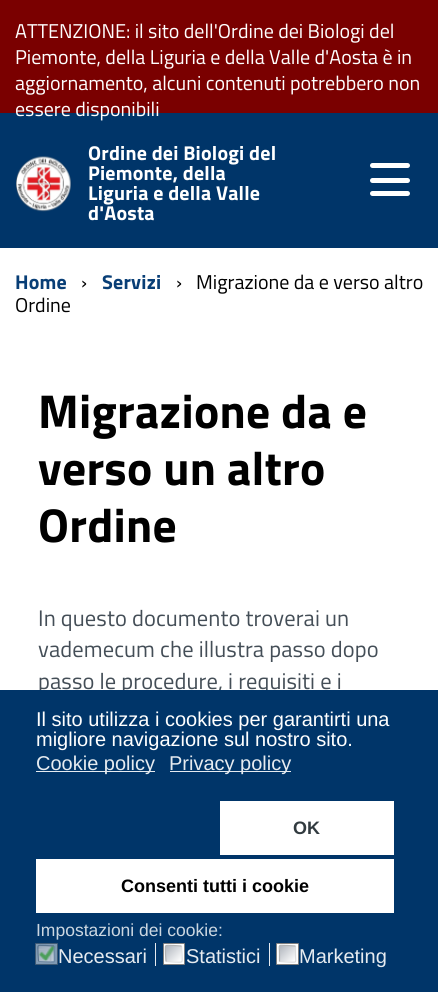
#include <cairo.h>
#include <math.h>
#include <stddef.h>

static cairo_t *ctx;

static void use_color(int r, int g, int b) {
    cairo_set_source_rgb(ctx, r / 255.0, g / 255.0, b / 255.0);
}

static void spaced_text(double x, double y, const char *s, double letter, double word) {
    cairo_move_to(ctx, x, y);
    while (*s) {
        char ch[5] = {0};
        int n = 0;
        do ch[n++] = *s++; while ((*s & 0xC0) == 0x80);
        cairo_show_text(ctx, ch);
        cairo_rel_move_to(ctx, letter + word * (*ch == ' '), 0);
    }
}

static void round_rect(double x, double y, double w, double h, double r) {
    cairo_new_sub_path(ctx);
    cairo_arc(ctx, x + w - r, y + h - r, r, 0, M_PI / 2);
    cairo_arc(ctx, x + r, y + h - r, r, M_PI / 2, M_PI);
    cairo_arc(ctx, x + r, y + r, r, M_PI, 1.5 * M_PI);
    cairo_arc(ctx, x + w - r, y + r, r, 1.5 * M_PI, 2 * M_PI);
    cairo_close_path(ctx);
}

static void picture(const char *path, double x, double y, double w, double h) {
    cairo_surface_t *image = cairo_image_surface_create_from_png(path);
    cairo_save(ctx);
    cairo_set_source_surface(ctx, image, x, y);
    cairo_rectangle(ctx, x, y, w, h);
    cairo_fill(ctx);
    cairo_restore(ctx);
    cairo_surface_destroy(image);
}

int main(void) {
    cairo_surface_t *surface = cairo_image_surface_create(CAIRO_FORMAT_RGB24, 438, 992);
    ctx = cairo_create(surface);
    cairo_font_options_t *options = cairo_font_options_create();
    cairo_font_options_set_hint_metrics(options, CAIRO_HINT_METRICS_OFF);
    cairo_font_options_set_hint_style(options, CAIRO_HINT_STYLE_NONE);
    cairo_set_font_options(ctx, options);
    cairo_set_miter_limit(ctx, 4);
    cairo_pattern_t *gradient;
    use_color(255, 255, 255);
    cairo_paint(ctx);
    use_color(122, 0, 0);
    cairo_rectangle(ctx, 0, 0, 438, 113);
    cairo_fill(ctx);
    cairo_select_font_face(ctx, "Titillium Web", CAIRO_FONT_SLANT_NORMAL, CAIRO_FONT_WEIGHT_NORMAL);
    cairo_set_font_size(ctx, 20);
    use_color(255, 255, 255);
    cairo_move_to(ctx, 15, 38);
    cairo_show_text(ctx, "ATTENZIONE: il sito dell'Ordine dei Biologi del");
    cairo_move_to(ctx, 15, 64);
    cairo_show_text(ctx, "Piemonte, della Liguria e della Valle d'Aosta è in");
    cairo_move_to(ctx, 15, 90);
    cairo_show_text(ctx, "aggiornamento, alcuni contenuti potrebbero non");
    use_color(0, 53, 105);
    cairo_rectangle(ctx, 0, 113, 438, 135);
    cairo_fill(ctx);
    use_color(255, 255, 255);
    cairo_move_to(ctx, 15, 116);
    cairo_show_text(ctx, "essere disponibili");
    picture("img1.png", 16, 156, 56, 56);
    cairo_select_font_face(ctx, "Titillium Web", CAIRO_FONT_SLANT_NORMAL, CAIRO_FONT_WEIGHT_BOLD);
    spaced_text(88, 160, "Ordine dei Biologi del", 0.2, 0);
    spaced_text(88, 180, "Piemonte, della", 0.2, 0);
    spaced_text(88, 200, "Liguria e della Valle", 0.2, 0);
    spaced_text(88, 220, "d'Aosta", 0.2, 0);
    round_rect(370, 178, 40, 5, 2.5);
    cairo_fill(ctx);
    round_rect(370, 163, 40, 5, 2.5);
    cairo_fill(ctx);
    round_rect(370, 191, 40, 5, 2.5);
    cairo_fill(ctx);
    use_color(8, 62, 118);
    spaced_text(15, 289, "Home", 0.2, 0);
    cairo_select_font_face(ctx, "Titillium Web", CAIRO_FONT_SLANT_NORMAL, CAIRO_FONT_WEIGHT_NORMAL);
    use_color(0, 0, 0);
    cairo_move_to(ctx, 81, 289);
    cairo_show_text(ctx, "›");
    cairo_select_font_face(ctx, "Titillium Web", CAIRO_FONT_SLANT_NORMAL, CAIRO_FONT_WEIGHT_BOLD);
    use_color(8, 62, 118);
    spaced_text(102, 289, "Servizi", 0.2, 0);
    cairo_select_font_face(ctx, "Titillium Web", CAIRO_FONT_SLANT_NORMAL, CAIRO_FONT_WEIGHT_NORMAL);
    use_color(0, 0, 0);
    cairo_move_to(ctx, 176, 289);
    cairo_show_text(ctx, "›");
    cairo_move_to(ctx, 196, 289);
    cairo_show_text(ctx, "Migrazione da e verso altro");
    cairo_move_to(ctx, 15, 312);
    cairo_show_text(ctx, "Ordine");
    cairo_select_font_face(ctx, "Titillium Web", CAIRO_FONT_SLANT_NORMAL, CAIRO_FONT_WEIGHT_BOLD);
    cairo_set_font_size(ctx, 47.5);
    spaced_text(38, 428, "Migrazione da e", 0.25, 0);
    spaced_text(38, 485, "verso un altro", 0.25, 0);
    spaced_text(38, 542, "Ordine", 0.25, 0);
    cairo_select_font_face(ctx, "Titillium Web", CAIRO_FONT_SLANT_NORMAL, CAIRO_FONT_WEIGHT_NORMAL);
    cairo_set_font_size(ctx, 22.5);
    use_color(68, 78, 87);
    spaced_text(38, 626, "In questo documento troverai un", 0.1, 0);
    spaced_text(38, 657, "vademecum che illustra passo dopo", 0.1, 0);
    spaced_text(38, 689, "passo le procedure, i requisiti e i", 0.1, 0);
    use_color(0, 53, 105);
    cairo_rectangle(ctx, 0, 690, 438, 302);
    cairo_fill(ctx);
    cairo_select_font_face(ctx, "Liberation Sans", CAIRO_FONT_SLANT_NORMAL, CAIRO_FONT_WEIGHT_NORMAL);
    cairo_set_font_size(ctx, 20);
    use_color(255, 255, 255);
    cairo_move_to(ctx, 36, 726);
    cairo_show_text(ctx, "Il sito utilizza i cookies per garantirti una");
    cairo_move_to(ctx, 36, 746);
    cairo_show_text(ctx, "migliore navigazione sul nostro sito.");
    use_color(230, 235, 240);
    cairo_rectangle(ctx, 36, 771, 119, 1);
    cairo_fill(ctx);
    cairo_move_to(ctx, 36, 770);
    cairo_show_text(ctx, "Cookie policy");
    cairo_rectangle(ctx, 170, 771, 121, 1);
    cairo_fill(ctx);
    cairo_move_to(ctx, 169, 770);
    cairo_show_text(ctx, "Privacy policy");
    use_color(255, 255, 255);
    cairo_rectangle(ctx, 220, 801, 174, 54);
    cairo_fill(ctx);
    cairo_select_font_face(ctx, "Liberation Sans", CAIRO_FONT_SLANT_NORMAL, CAIRO_FONT_WEIGHT_BOLD);
    cairo_set_font_size(ctx, 18);
    use_color(50, 59, 64);
    cairo_move_to(ctx, 293, 834);
    cairo_show_text(ctx, "OK");
    use_color(255, 255, 255);
    cairo_rectangle(ctx, 36, 859, 358, 54);
    cairo_fill(ctx);
    use_color(0, 0, 0);
    cairo_move_to(ctx, 121, 892);
    cairo_show_text(ctx, "Consenti tutti i cookie");
    cairo_select_font_face(ctx, "Liberation Sans", CAIRO_FONT_SLANT_NORMAL, CAIRO_FONT_WEIGHT_NORMAL);
    cairo_set_font_size(ctx, 17.5);
    use_color(204, 215, 225);
    cairo_move_to(ctx, 36, 936);
    cairo_show_text(ctx, "Impostazioni dei cookie:");
    use_color(128, 154, 180);
    round_rect(35.5, 943.5, 22, 21, 0.5);
    cairo_fill_preserve(ctx);
    use_color(64, 91, 117);
    cairo_set_line_width(ctx, 1);
    cairo_stroke(ctx);
    picture("img2.png", 37, 945, 19, 18);
    cairo_new_path(ctx);
    cairo_move_to(ctx, 54, 946);
    cairo_line_to(ctx, 54.5, 954);
    cairo_curve_to(ctx, 54.5, 964, 56.5, 962, 46, 962);
    cairo_line_to(ctx, 38.5, 961.5);
    use_color(110, 137, 164);
    cairo_set_line_width(ctx, 1.2);
    cairo_stroke(ctx);
    cairo_new_path(ctx);
    cairo_move_to(ctx, 38.5, 961.5);
    cairo_line_to(ctx, 38, 954);
    cairo_curve_to(ctx, 38, 943.5, 36, 945.5, 46, 945.5);
    cairo_line_to(ctx, 54, 946);
    use_color(90, 116, 142);
    cairo_stroke(ctx);
    use_color(230, 235, 240);
    cairo_rectangle(ctx, 155, 943, 1, 23);
    cairo_fill(ctx);
    cairo_set_font_size(ctx, 20);
    cairo_move_to(ctx, 58, 963);
    cairo_show_text(ctx, "Necessari");
    use_color(255, 255, 255);
    round_rect(163.5, 943.5, 21, 21, 0.5);
    cairo_fill_preserve(ctx);
    use_color(128, 128, 128);
    cairo_set_line_width(ctx, 1);
    cairo_stroke(ctx);
    gradient = cairo_pattern_create_linear(166, 946, 181, 961);
    cairo_pattern_add_color_stop_rgba(gradient, 0, 0.694, 0.714, 0.745, 1);
    cairo_pattern_add_color_stop_rgba(gradient, 1, 1, 1, 1, 1);
    cairo_set_source(ctx, gradient);
    cairo_pattern_destroy(gradient);
    cairo_rectangle(ctx, 166, 946, 15, 15);
    cairo_fill(ctx);
    cairo_new_path(ctx);
    cairo_move_to(ctx, 181.5, 946);
    cairo_line_to(ctx, 182, 954);
    cairo_curve_to(ctx, 182, 964, 184, 962, 174, 962);
    cairo_line_to(ctx, 166, 961.5);
    use_color(220, 221, 222);
    cairo_set_line_width(ctx, 1.2);
    cairo_stroke(ctx);
    cairo_new_path(ctx);
    cairo_move_to(ctx, 166, 961.5);
    cairo_line_to(ctx, 165.5, 954);
    cairo_curve_to(ctx, 165.5, 943.5, 163.5, 945.5, 174, 945.5);
    cairo_line_to(ctx, 181.5, 946);
    use_color(179, 179, 179);
    cairo_stroke(ctx);
    use_color(230, 235, 240);
    cairo_rectangle(ctx, 269, 943, 1, 23);
    cairo_fill(ctx);
    cairo_move_to(ctx, 186, 963);
    cairo_show_text(ctx, "Statistici");
    use_color(255, 255, 255);
    round_rect(276.5, 943.5, 22, 21, 0.5);
    cairo_fill_preserve(ctx);
    use_color(128, 128, 128);
    cairo_set_line_width(ctx, 1);
    cairo_stroke(ctx);
    gradient = cairo_pattern_create_linear(280, 946, 295, 961);
    cairo_pattern_add_color_stop_rgba(gradient, 0, 0.694, 0.714, 0.745, 1);
    cairo_pattern_add_color_stop_rgba(gradient, 1, 1, 1, 1, 1);
    cairo_set_source(ctx, gradient);
    cairo_pattern_destroy(gradient);
    cairo_rectangle(ctx, 280, 946, 15, 15);
    cairo_fill(ctx);
    cairo_new_path(ctx);
    cairo_move_to(ctx, 295.5, 946);
    cairo_line_to(ctx, 295.5, 954);
    cairo_curve_to(ctx, 295.5, 964, 298, 962, 287.5, 962);
    cairo_line_to(ctx, 279.5, 961.5);
    use_color(220, 221, 222);
    cairo_set_line_width(ctx, 1.2);
    cairo_stroke(ctx);
    cairo_new_path(ctx);
    cairo_move_to(ctx, 279.5, 961.5);
    cairo_line_to(ctx, 279.5, 954);
    cairo_curve_to(ctx, 279.5, 943.5, 277, 945.5, 287.5, 945.5);
    cairo_line_to(ctx, 295.5, 946);
    use_color(179, 179, 179);
    cairo_stroke(ctx);
    use_color(230, 235, 240);
    cairo_move_to(ctx, 299, 963);
    cairo_show_text(ctx, "Marketing");
    cairo_surface_write_to_png(surface, "result.png");
    cairo_font_options_destroy(options);
    cairo_destroy(ctx);
    cairo_surface_destroy(surface);
    return 0;
}
